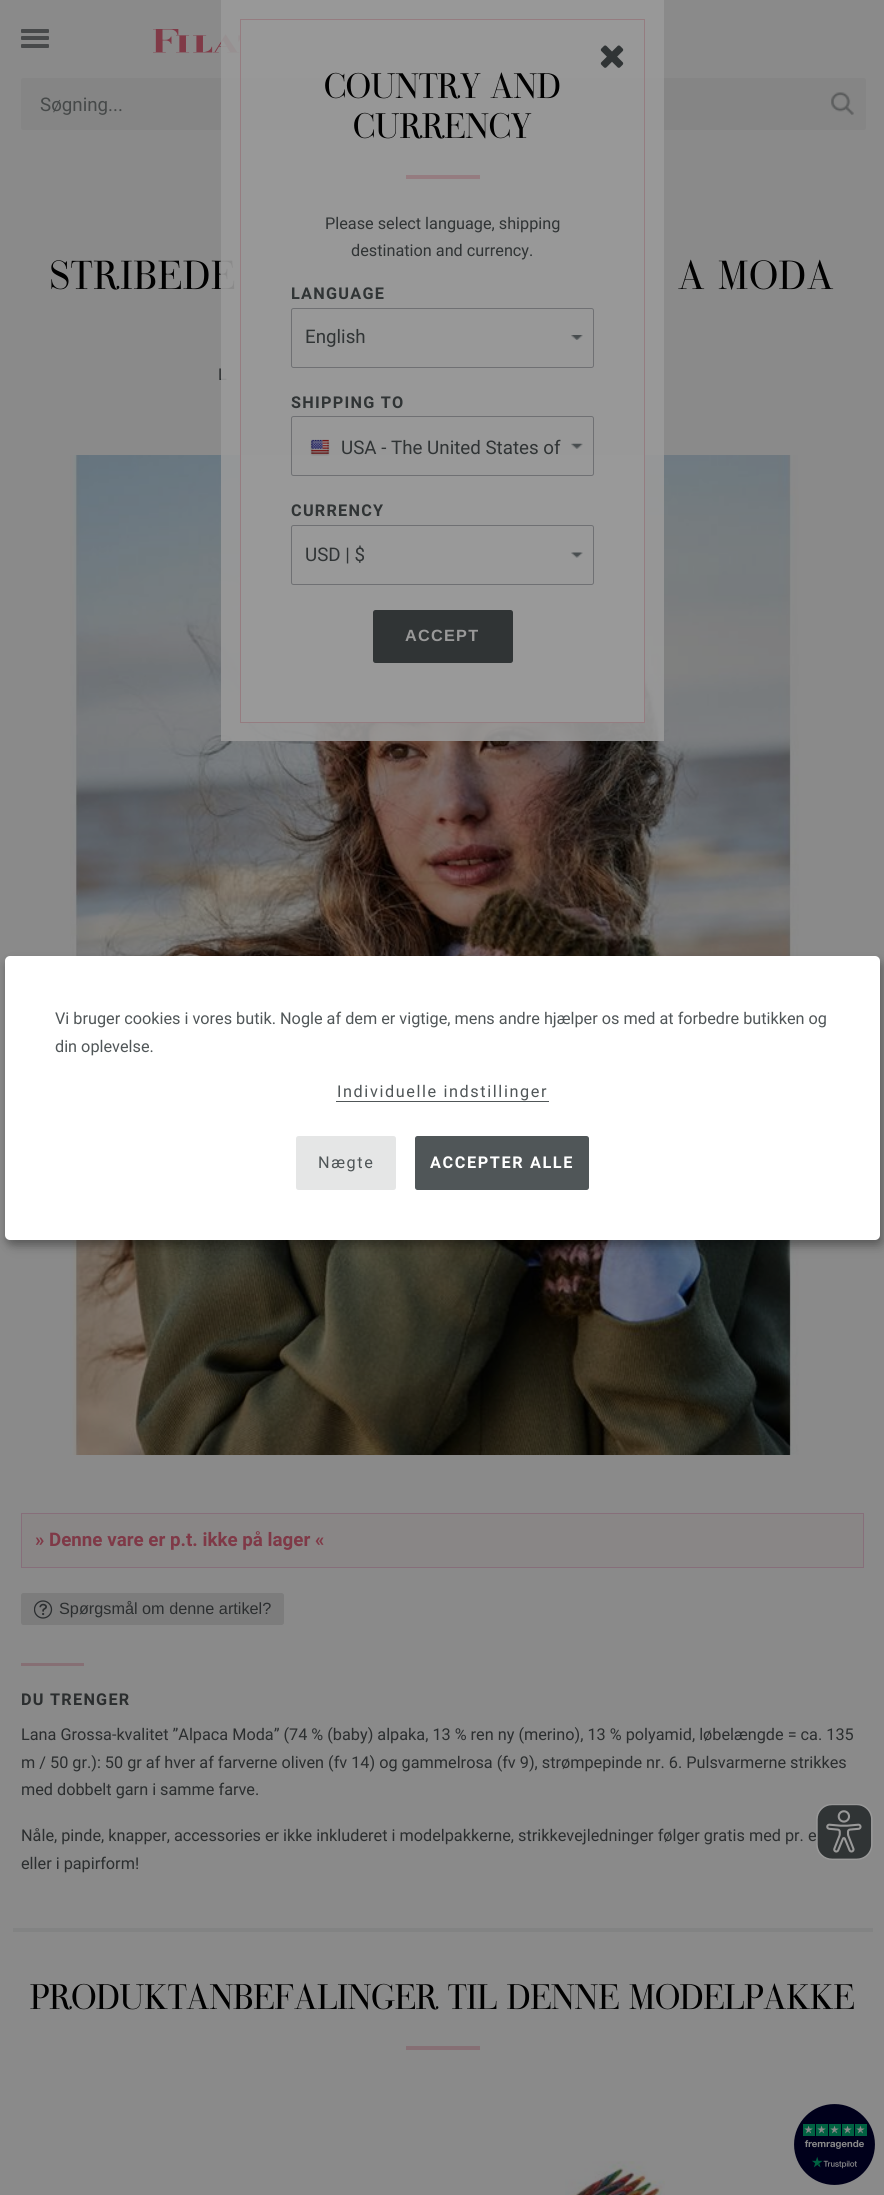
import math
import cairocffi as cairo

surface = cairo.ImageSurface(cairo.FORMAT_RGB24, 884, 2195)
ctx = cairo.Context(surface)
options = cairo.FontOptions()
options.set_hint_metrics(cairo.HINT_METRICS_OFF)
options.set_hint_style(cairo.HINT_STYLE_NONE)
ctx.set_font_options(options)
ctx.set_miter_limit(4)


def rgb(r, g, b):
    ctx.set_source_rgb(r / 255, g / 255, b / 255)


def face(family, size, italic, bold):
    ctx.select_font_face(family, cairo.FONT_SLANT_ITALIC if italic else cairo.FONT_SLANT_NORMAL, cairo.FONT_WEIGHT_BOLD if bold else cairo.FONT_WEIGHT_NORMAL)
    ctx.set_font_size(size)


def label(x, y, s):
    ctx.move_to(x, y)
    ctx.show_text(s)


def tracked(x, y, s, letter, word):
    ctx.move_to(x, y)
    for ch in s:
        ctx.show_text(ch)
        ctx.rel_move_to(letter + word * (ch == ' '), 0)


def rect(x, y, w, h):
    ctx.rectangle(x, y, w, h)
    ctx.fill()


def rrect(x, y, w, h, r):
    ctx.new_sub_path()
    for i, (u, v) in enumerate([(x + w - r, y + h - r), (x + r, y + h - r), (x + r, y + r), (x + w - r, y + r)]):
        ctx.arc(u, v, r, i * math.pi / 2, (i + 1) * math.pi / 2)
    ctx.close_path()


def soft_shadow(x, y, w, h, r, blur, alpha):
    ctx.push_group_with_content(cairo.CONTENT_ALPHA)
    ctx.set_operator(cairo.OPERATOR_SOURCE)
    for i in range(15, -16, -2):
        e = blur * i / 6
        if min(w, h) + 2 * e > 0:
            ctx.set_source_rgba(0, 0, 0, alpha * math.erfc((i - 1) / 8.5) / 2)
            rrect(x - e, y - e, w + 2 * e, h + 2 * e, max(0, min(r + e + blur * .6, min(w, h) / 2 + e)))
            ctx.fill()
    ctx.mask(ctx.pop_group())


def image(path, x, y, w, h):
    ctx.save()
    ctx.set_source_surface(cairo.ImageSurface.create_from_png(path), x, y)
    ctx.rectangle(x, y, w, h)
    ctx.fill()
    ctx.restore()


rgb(138, 138, 138)
ctx.paint()
rgb(71, 73, 74)
rrect(21, 29, 28, 4, 1)
ctx.fill()
rrect(21, 36, 28, 4, 1)
ctx.fill()
rrect(21, 44, 28, 4, 1)
ctx.fill()
image('image0.png', 153, 29, 87, 24)
rgb(133, 133, 133)
ctx.new_path()
ctx.move_to(23.5, 78)
ctx.line_to(780, 78)
ctx.line_to(780, 130)
ctx.line_to(23.5, 130)
ctx.curve_to(22, 130, 21, 129, 21, 127.5)
ctx.line_to(21, 80.5)
ctx.curve_to(21, 79, 22, 78, 23.5, 78)
ctx.close_path()
ctx.fill()
face('Roboto', 18.75, 0, 0)
rgb(70, 73, 73)
label(40, 111, 'Søgning...')
rgb(133, 133, 133)
ctx.new_path()
ctx.move_to(780, 78)
ctx.line_to(863.5, 78)
ctx.curve_to(865, 78, 866, 79, 866, 80.5)
ctx.line_to(866, 127.5)
ctx.curve_to(866, 129, 865, 130, 863.5, 130)
ctx.line_to(780, 130)
ctx.close_path()
ctx.fill()
image('image1.png', 831, 92, 23, 23)
face('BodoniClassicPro', 40, 0, 0)
rgb(0, 0, 0)
tracked(50, 289, 'STRIBEDE', 1.25, 0)
face('Roboto', 16.25, 0, 0)
rgb(43, 46, 47)
label(218, 380, 'L')
image('image7.png', 70, 455, 729, 1000)
ctx.set_source_rgba(0.6, 0.6, 0.6, 0.9)
rect(221, 0, 443, 741)
rgb(153, 153, 153)
rect(241, 455, 403, 267)
ctx.rectangle(240.5, 19.5, 404, 703)
rgb(149, 124, 128)
ctx.set_line_width(1)
ctx.stroke()
image('image2.png', 600, 45, 24, 23)
face('BodoniClassicPro', 35, 0, 0)
rgb(0, 0, 0)
label(324, 98, 'COUNTRY AND')
label(353, 138, 'CURRENCY')
rgb(149, 124, 128)
rect(406, 175, 74, 4)
face('Roboto', 16.25, 0, 0)
rgb(48, 52, 53)
label(325, 229, 'Please select language, shipping')
label(351, 256, 'destination and currency.')
face('Roboto', 16.25, 0, 1)
tracked(291, 299, 'LANGUAGE', 1.25, 0)
image('image3.png', 571, 335, 12, 5)
rrect(291.5, 308.5, 302, 59, 2)
rgb(111, 112, 115)
ctx.stroke()
face('Roboto', 18.75, 0, 0)
rgb(48, 52, 53)
label(305, 343, 'English')
face('Roboto', 16.25, 0, 1)
tracked(291, 408, 'SHIPPING TO', 1.25, 0)
image('image4.png', 571, 443, 12, 6)
rrect(291.5, 416.5, 302, 59, 2)
rgb(111, 112, 115)
ctx.stroke()
image('image5.png', 310, 439, 20, 17)
face('Roboto', 18.75, 0, 0)
rgb(48, 52, 53)
label(341, 454, 'USA - The United States of')
face('Roboto', 16.25, 0, 1)
tracked(291, 516, 'CURRENCY', 1.25, 0)
image('image6.png', 571, 552, 12, 6)
rrect(291.5, 525.5, 302, 59, 2)
rgb(111, 112, 115)
ctx.stroke()
face('Roboto', 18.75, 0, 0)
rgb(48, 52, 53)
label(305, 561, 'USD | $')
rrect(373, 610, 140, 53, 2.5)
ctx.fill()
face('Liberation Sans', 16.25, 0, 1)
rgb(153, 153, 153)
tracked(405, 641, 'ACCEPT', 1.25, 0)
face('BodoniClassicPro', 40, 0, 0)
rgb(0, 0, 0)
tracked(678, 289, 'A MODA', 1.25, 0)
rgb(137, 134, 134)
ctx.rectangle(21.5, 1513.5, 842, 54)
ctx.fill_preserve()
rgb(135, 110, 122)
ctx.stroke()
face('Roboto', 18.75, 0, 1)
rgb(127, 57, 71)
label(35, 1546, '» Denne vare er p.t. ikke på lager «')
rgb(124, 124, 124)
rrect(21, 1593, 263, 32, 2.5)
ctx.fill()
image('image8.png', 34, 1600, 19, 19)
face('Liberation Sans', 16.25, 0, 0)
rgb(43, 46, 47)
label(59, 1614, 'Spørgsmål om denne artikel?')
rgb(134, 111, 116)
rect(21, 1663, 63, 3)
face('Roboto', 16.25, 0, 1)
rgb(43, 46, 47)
tracked(21, 1705, 'DU TRENGER', 1.25, 0)
face('Roboto', 16.25, 0, 0)
label(21, 1740, 'Lana Grossa-kvalitet ”Alpaca Moda” (74 % (baby) alpaka, 13 % ren ny (merino), 13 % polyamid, løbelængde = ca. 135')
label(21, 1768, 'm / 50 gr.): 50 gr af hver af farverne oliven (fv 14) og gammelrosa (fv 9), strømpepinde nr. 6. Pulsvarmerne strikkes')
label(21, 1795, 'med dobbelt garn i samme farve.')
label(21, 1841, 'Nåle, pinde, knapper, accessories er ikke inkluderet i modelpakkerne, strikkevejledninger følger gratis med pr. e')
label(21, 1869, 'eller i papirform!')
rgb(130, 131, 131)
rect(13, 1928, 860, 4)
face('BodoniClassicPro', 35, 0, 0)
rgb(0, 0, 0)
label(30, 2009, 'PRODUKTANBEFALINGER TIL DENNE MODELPAKKE')
rgb(134, 111, 116)
rect(406, 2046, 74, 4)
image('image9.png', 565, 2161, 100, 34)
rgb(0, 0, 0)
soft_shadow(11, 963, 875, 283, 5, 6, 0.19)
soft_shadow(5, 961, 875, 284, 5, 4, 0.2)
rgb(255, 255, 255)
rrect(5, 956, 875, 284, 5)
ctx.fill()
face('Roboto', 16.25, 0, 0)
rgb(80, 86, 88)
label(55, 1024, 'Vi bruger cookies i vores butik. Nogle af dem er vigtige, mens andre hjælper os med at forbedre butikken og')
label(55, 1052, 'din oplevelse.')
tracked(337, 1097, 'Individuelle indstillinger', 1.6, 0)
rect(336, 1101, 213, 1)
rgb(229, 230, 230)
rrect(296, 1136, 100, 54, 2.5)
ctx.fill()
rgb(80, 86, 88)
tracked(318, 1168, 'Nægte', 1.6, 0)
rrect(415, 1136, 174, 54, 2.5)
ctx.fill()
face('Roboto', 16.25, 0, 1)
rgb(255, 255, 255)
tracked(430, 1168, 'ACCEPTER ALLE', 1.6, 0)
image('image10.png', 816, 1804, 57, 56)
image('image11.png', 794, 2104, 81, 81)
surface.write_to_png('render.png')
